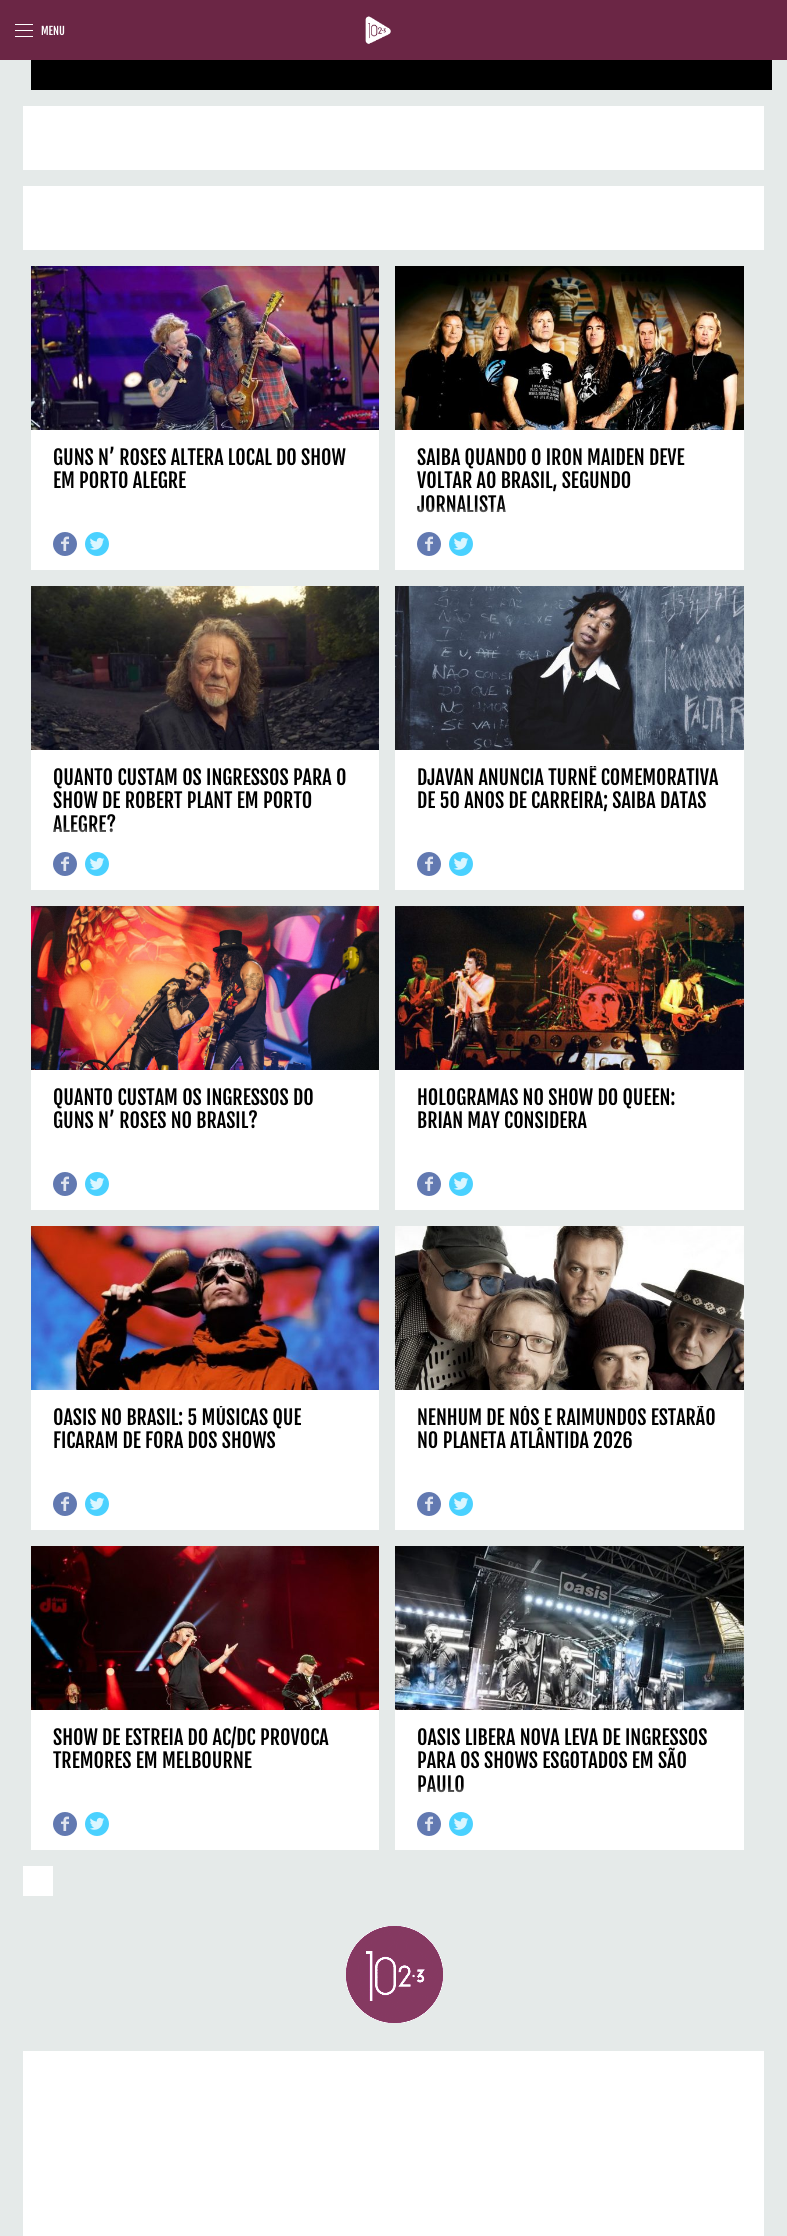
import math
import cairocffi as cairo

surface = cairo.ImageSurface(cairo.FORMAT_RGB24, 787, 2236)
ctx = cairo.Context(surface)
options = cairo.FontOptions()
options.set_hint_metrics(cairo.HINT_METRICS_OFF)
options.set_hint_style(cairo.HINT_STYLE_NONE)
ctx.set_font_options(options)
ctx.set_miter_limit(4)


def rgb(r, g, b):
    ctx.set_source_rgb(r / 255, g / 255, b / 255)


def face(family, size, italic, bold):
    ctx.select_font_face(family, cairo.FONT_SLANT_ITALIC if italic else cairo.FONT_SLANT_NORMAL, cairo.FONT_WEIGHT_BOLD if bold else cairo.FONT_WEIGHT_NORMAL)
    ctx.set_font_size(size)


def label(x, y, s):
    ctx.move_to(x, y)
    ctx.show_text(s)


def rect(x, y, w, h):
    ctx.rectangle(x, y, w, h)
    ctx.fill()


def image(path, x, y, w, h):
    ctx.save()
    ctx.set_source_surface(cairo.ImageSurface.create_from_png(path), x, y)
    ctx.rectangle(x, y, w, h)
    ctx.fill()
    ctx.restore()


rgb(229, 234, 233)
ctx.paint()
rgb(107, 38, 69)
rect(0, 0, 787, 60)
rgb(255, 255, 255)
rect(15, 24, 18, 1)
rect(15, 30, 18, 1)
rect(15, 36, 18, 1)
face('Fjalla One', 11, 0, 0)
label(41, 35, 'MENU')
image('image0.png', 365, 16, 26, 28)
rgb(0, 0, 0)
rect(31, 60, 741, 30)
rgb(255, 255, 255)
rect(23, 106, 741, 64)
rect(23, 186, 741, 64)
rect(31, 430, 348, 140)
image('image1.png', 31, 266, 348, 164)
face('Fjalla One', 20, 0, 0)
rgb(0, 0, 0)
label(53, 465, 'GUNS N’ ROSES ALTERA LOCAL DO SHOW')
label(53, 488, 'EM PORTO ALEGRE')
rgb(98, 121, 177)
ctx.new_path()
ctx.arc(65, 544, 12, 0, 2 * math.pi)
ctx.fill()
image('image2.png', 61, 536, 8, 15)
rgb(74, 209, 255)
ctx.arc(97, 544, 12, 0, 2 * math.pi)
ctx.fill()
image('image3.png', 89, 537, 16, 13)
rgb(255, 255, 255)
rect(395, 430, 349, 140)
image('image4.png', 395, 266, 349, 164)
rgb(0, 0, 0)
label(417, 465, 'SAIBA QUANDO O IRON MAIDEN DEVE')
label(417, 488, 'VOLTAR AO BRASIL, SEGUNDO')
label(417, 512, 'JORNALISTA')
gradient = cairo.LinearGradient(570, 506, 570, 522)
gradient.add_color_stop_rgba(0, 1, 1, 1, 0)
gradient.add_color_stop_rgba(1, 1, 1, 1, 1)
ctx.set_source(gradient)
rect(417, 506, 89, 7)
rgb(98, 121, 177)
ctx.new_path()
ctx.arc(429, 544, 12, 0, 2 * math.pi)
ctx.fill()
image('image2.png', 425, 536, 8, 15)
rgb(74, 209, 255)
ctx.arc(461, 544, 12, 0, 2 * math.pi)
ctx.fill()
image('image3.png', 453, 537, 16, 13)
rgb(255, 255, 255)
rect(31, 750, 348, 140)
image('image5.png', 31, 586, 348, 164)
rgb(0, 0, 0)
label(53, 785, 'QUANTO CUSTAM OS INGRESSOS PARA O')
label(53, 808, 'SHOW DE ROBERT PLANT EM PORTO')
label(53, 832, 'ALEGRE?')
gradient = cairo.LinearGradient(205, 826, 205, 842)
gradient.add_color_stop_rgba(0, 1, 1, 1, 0)
gradient.add_color_stop_rgba(1, 1, 1, 1, 1)
ctx.set_source(gradient)
rect(53, 826, 60, 7)
rgb(98, 121, 177)
ctx.new_path()
ctx.arc(65, 864, 12, 0, 2 * math.pi)
ctx.fill()
image('image2.png', 61, 856, 8, 15)
rgb(74, 209, 255)
ctx.arc(97, 864, 12, 0, 2 * math.pi)
ctx.fill()
image('image3.png', 89, 857, 16, 13)
rgb(255, 255, 255)
rect(395, 750, 349, 140)
image('image6.png', 395, 586, 349, 164)
ctx.save()
ctx.rectangle(417, 766, 305, 76)
ctx.clip()
rgb(0, 0, 0)
label(417, 785, 'DJAVAN ANUNCIA TURNÊ COMEMORATIVA')
ctx.restore()
rgb(0, 0, 0)
label(417, 808, 'DE 50 ANOS DE CARREIRA; SAIBA DATAS')
rgb(98, 121, 177)
ctx.new_path()
ctx.arc(429, 864, 12, 0, 2 * math.pi)
ctx.fill()
image('image2.png', 425, 856, 8, 15)
rgb(74, 209, 255)
ctx.arc(461, 864, 12, 0, 2 * math.pi)
ctx.fill()
image('image3.png', 453, 857, 16, 13)
rgb(255, 255, 255)
rect(31, 1070, 348, 140)
image('image7.png', 31, 906, 348, 164)
rgb(0, 0, 0)
label(53, 1105, 'QUANTO CUSTAM OS INGRESSOS DO')
label(53, 1128, 'GUNS N’ ROSES NO BRASIL?')
rgb(98, 121, 177)
ctx.new_path()
ctx.arc(65, 1184, 12, 0, 2 * math.pi)
ctx.fill()
image('image2.png', 61, 1176, 8, 15)
rgb(74, 209, 255)
ctx.arc(97, 1184, 12, 0, 2 * math.pi)
ctx.fill()
image('image3.png', 89, 1177, 16, 13)
rgb(255, 255, 255)
rect(395, 1070, 349, 140)
image('image8.png', 395, 906, 349, 164)
rgb(0, 0, 0)
label(417, 1105, 'HOLOGRAMAS NO SHOW DO QUEEN:')
label(417, 1128, 'BRIAN MAY CONSIDERA')
rgb(98, 121, 177)
ctx.new_path()
ctx.arc(429, 1184, 12, 0, 2 * math.pi)
ctx.fill()
image('image2.png', 425, 1176, 8, 15)
rgb(74, 209, 255)
ctx.arc(461, 1184, 12, 0, 2 * math.pi)
ctx.fill()
image('image3.png', 453, 1177, 16, 13)
rgb(255, 255, 255)
rect(31, 1390, 348, 140)
image('image9.png', 31, 1226, 348, 164)
ctx.save()
ctx.rectangle(53, 1406, 304, 76)
ctx.clip()
rgb(0, 0, 0)
label(53, 1425, 'OASIS NO BRASIL: 5 MÚSICAS QUE')
ctx.restore()
rgb(0, 0, 0)
label(53, 1448, 'FICARAM DE FORA DOS SHOWS')
rgb(98, 121, 177)
ctx.new_path()
ctx.arc(65, 1504, 12, 0, 2 * math.pi)
ctx.fill()
image('image2.png', 61, 1496, 8, 15)
rgb(74, 209, 255)
ctx.arc(97, 1504, 12, 0, 2 * math.pi)
ctx.fill()
image('image3.png', 89, 1497, 16, 13)
rgb(255, 255, 255)
rect(395, 1390, 349, 140)
image('image10.png', 395, 1226, 349, 164)
ctx.save()
ctx.rectangle(417, 1406, 305, 76)
ctx.clip()
rgb(0, 0, 0)
label(417, 1425, 'NENHUM DE NÓS E RAIMUNDOS ESTARÃO')
ctx.restore()
rgb(0, 0, 0)
label(417, 1448, 'NO PLANETA ATLÂNTIDA 2026')
rgb(98, 121, 177)
ctx.new_path()
ctx.arc(429, 1504, 12, 0, 2 * math.pi)
ctx.fill()
image('image2.png', 425, 1496, 8, 15)
rgb(74, 209, 255)
ctx.arc(461, 1504, 12, 0, 2 * math.pi)
ctx.fill()
image('image3.png', 453, 1497, 16, 13)
rgb(255, 255, 255)
rect(31, 1710, 348, 140)
image('image11.png', 31, 1546, 348, 164)
rgb(0, 0, 0)
label(53, 1745, 'SHOW DE ESTREIA DO AC/DC PROVOCA')
label(53, 1768, 'TREMORES EM MELBOURNE')
rgb(98, 121, 177)
ctx.new_path()
ctx.arc(65, 1824, 12, 0, 2 * math.pi)
ctx.fill()
image('image2.png', 61, 1816, 8, 15)
rgb(74, 209, 255)
ctx.arc(97, 1824, 12, 0, 2 * math.pi)
ctx.fill()
image('image3.png', 89, 1817, 16, 13)
rgb(255, 255, 255)
rect(395, 1710, 349, 140)
image('image12.png', 395, 1546, 349, 164)
rgb(0, 0, 0)
label(417, 1745, 'OASIS LIBERA NOVA LEVA DE INGRESSOS')
label(417, 1768, 'PARA OS SHOWS ESGOTADOS EM SÃO')
label(417, 1792, 'PAULO')
gradient = cairo.LinearGradient(570, 1786, 570, 1802)
gradient.add_color_stop_rgba(0, 1, 1, 1, 0)
gradient.add_color_stop_rgba(1, 1, 1, 1, 1)
ctx.set_source(gradient)
rect(418, 1786, 46, 7)
rgb(98, 121, 177)
ctx.new_path()
ctx.arc(429, 1824, 12, 0, 2 * math.pi)
ctx.fill()
image('image2.png', 425, 1816, 8, 15)
rgb(74, 209, 255)
ctx.arc(461, 1824, 12, 0, 2 * math.pi)
ctx.fill()
image('image3.png', 453, 1817, 16, 13)
rgb(255, 255, 255)
rect(23, 1866, 30, 30)
image('image13.png', 346, 1926, 97, 97)
rect(23, 2051, 741, 185)
surface.write_to_png('render.png')
